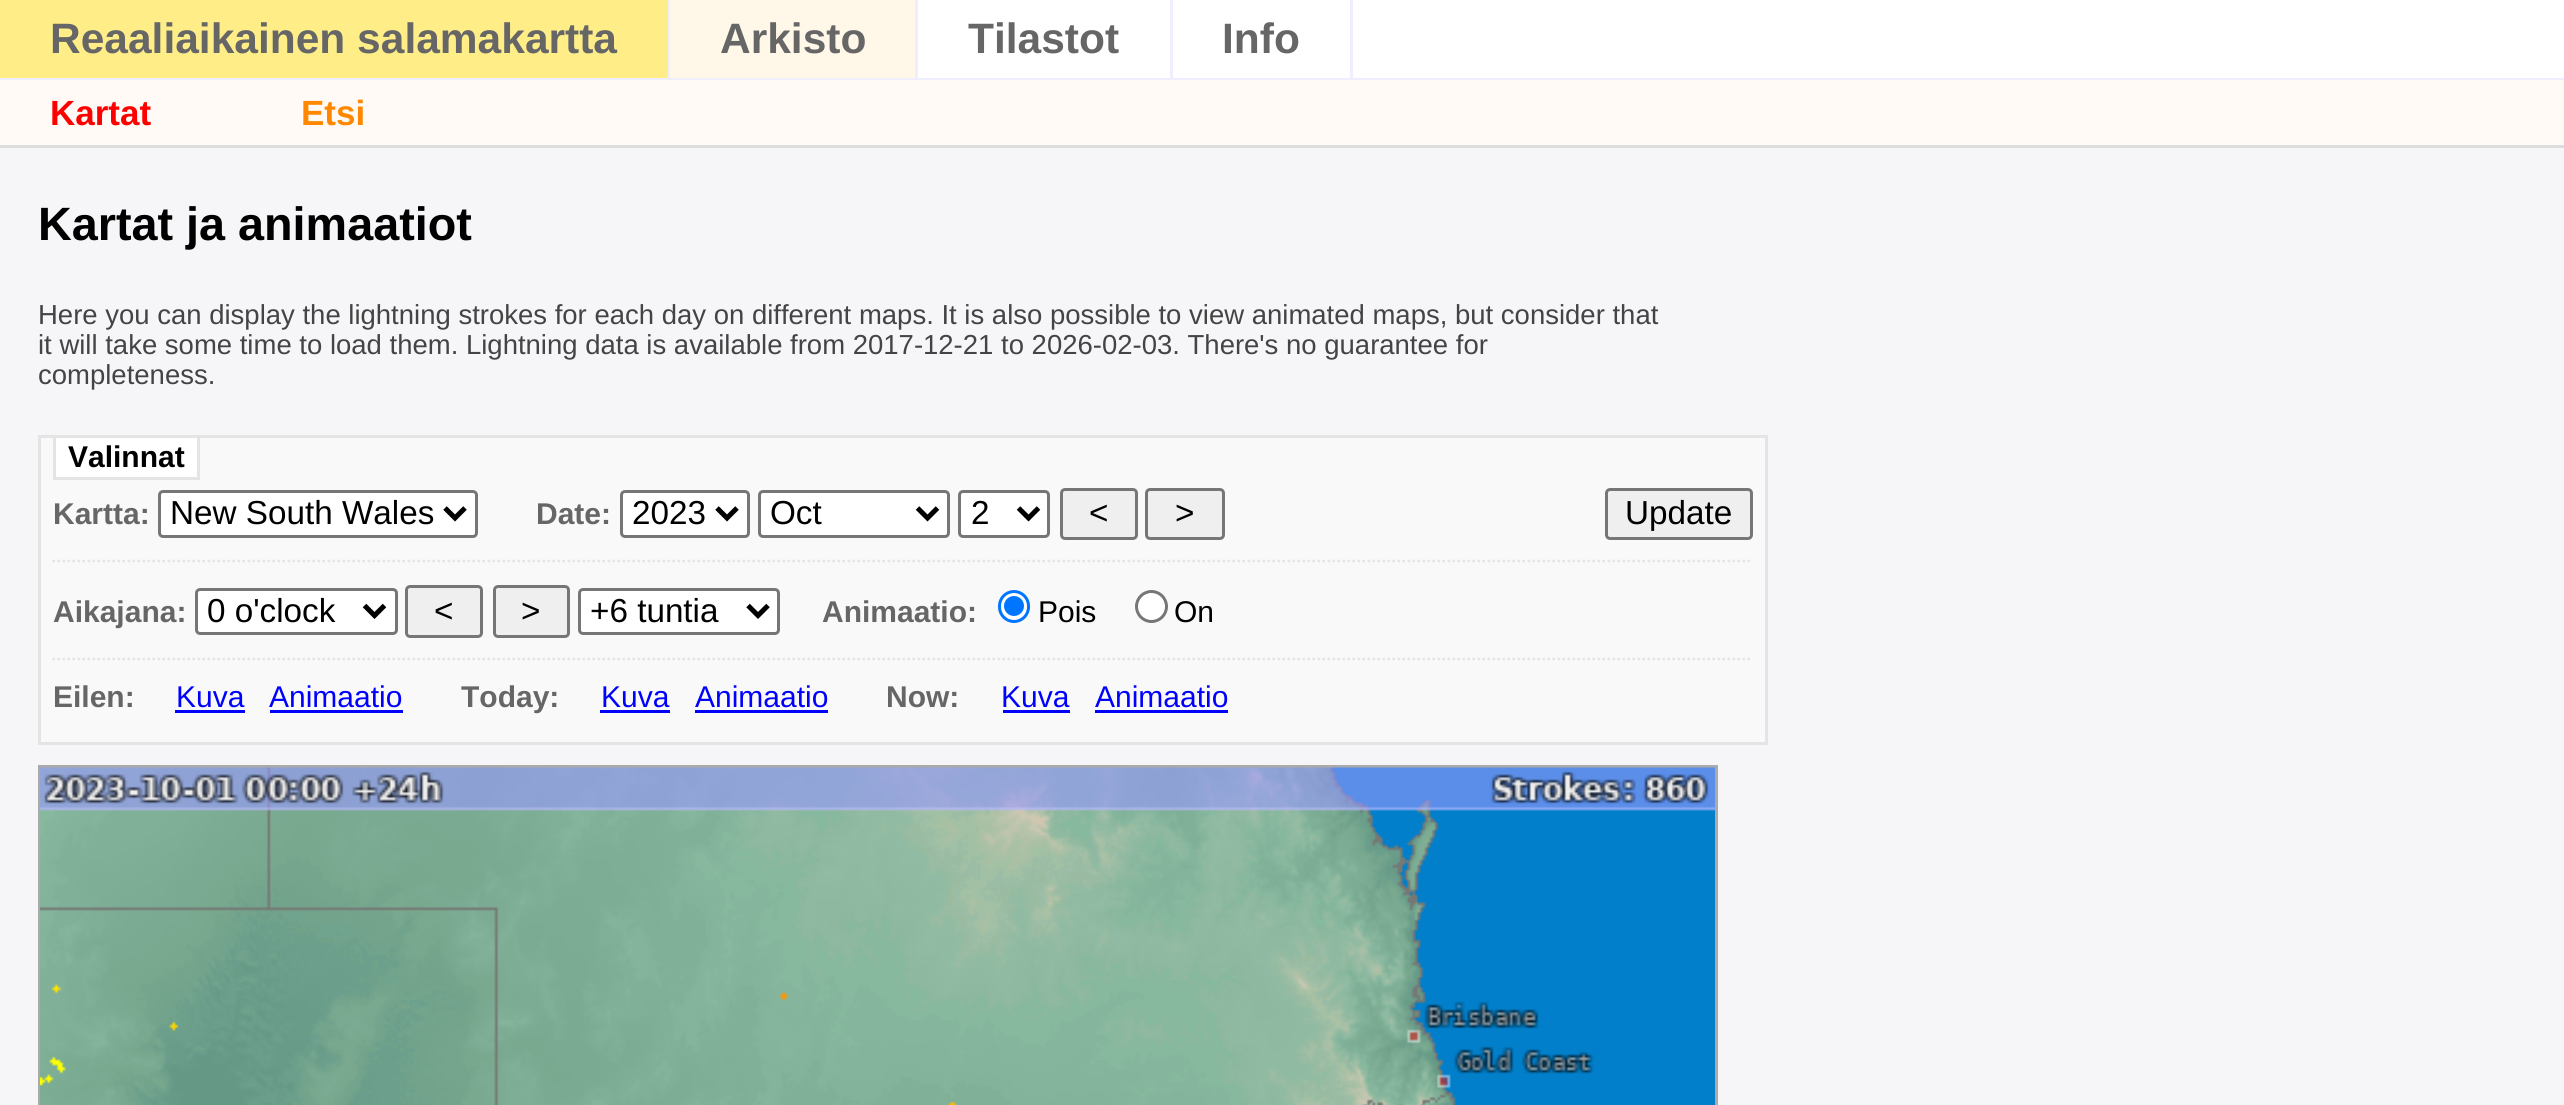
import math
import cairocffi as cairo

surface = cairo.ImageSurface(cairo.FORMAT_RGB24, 2564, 1105)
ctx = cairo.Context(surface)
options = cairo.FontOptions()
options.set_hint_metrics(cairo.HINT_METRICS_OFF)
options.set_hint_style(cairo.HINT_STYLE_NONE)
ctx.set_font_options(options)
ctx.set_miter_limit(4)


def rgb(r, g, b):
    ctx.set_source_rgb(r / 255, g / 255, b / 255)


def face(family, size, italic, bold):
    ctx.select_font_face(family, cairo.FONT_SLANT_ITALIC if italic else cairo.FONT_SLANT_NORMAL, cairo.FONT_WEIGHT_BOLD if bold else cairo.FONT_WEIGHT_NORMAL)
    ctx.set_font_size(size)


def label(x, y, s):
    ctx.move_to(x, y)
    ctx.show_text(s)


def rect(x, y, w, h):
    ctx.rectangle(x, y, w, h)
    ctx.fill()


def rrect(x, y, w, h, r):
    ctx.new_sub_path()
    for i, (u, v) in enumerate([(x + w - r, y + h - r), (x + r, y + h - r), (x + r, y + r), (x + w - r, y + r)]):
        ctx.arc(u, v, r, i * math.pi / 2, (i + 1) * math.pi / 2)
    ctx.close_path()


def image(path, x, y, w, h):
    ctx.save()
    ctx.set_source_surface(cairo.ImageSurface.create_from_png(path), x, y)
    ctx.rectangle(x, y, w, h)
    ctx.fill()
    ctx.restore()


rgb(246, 246, 249)
ctx.paint()
rgb(255, 255, 255)
rect(918, 0, 1646, 78)
rgb(238, 238, 255)
rect(0, 78, 2564, 2)
rect(668, 0, 2, 78)
rgb(255, 238, 136)
rect(0, 0, 668, 78)
face('Liberation Sans', 42.5, 0, 1)
rgb(102, 102, 102)
label(50, 53, 'Reaaliaikainen salamakartta')
rgb(238, 238, 255)
rect(915, 0, 3, 78)
rgb(255, 247, 231)
rect(670, 0, 245, 78)
rgb(102, 102, 102)
label(720, 53, 'Arkisto')
rgb(238, 238, 255)
rect(1170, 0, 3, 78)
rgb(102, 102, 102)
label(968, 53, 'Tilastot')
rgb(238, 238, 255)
rect(1350, 0, 3, 78)
rgb(102, 102, 102)
label(1222, 53, 'Info')
rgb(255, 250, 245)
rect(0, 80, 2564, 65)
rgb(221, 221, 221)
rect(0, 145, 2564, 3)
face('Liberation Sans', 35, 0, 1)
rgb(255, 0, 0)
label(50, 125, 'Kartat')
rgb(255, 136, 0)
label(301, 125, 'Etsi')
face('Liberation Sans', 46.75, 0, 1)
rgb(0, 0, 0)
label(38, 240, 'Kartat ja animaatiot')
face('Liberation Sans', 27.5, 0, 0)
rgb(68, 68, 68)
label(38, 324, 'Here you can display the lightning strokes for each day on different maps. It is also possible to view animated maps, but consider that')
label(38, 354, 'it will take some time to load them. Lightning data is available from 2017-12-21 to 2026-02-03. There\'s no guarantee for')
label(38, 384, 'completeness.')
rgb(249, 249, 249)
ctx.rectangle(39.5, 436.5, 1727, 307)
ctx.fill_preserve()
rgb(228, 228, 228)
ctx.set_line_width(3)
ctx.stroke()
rgb(255, 255, 255)
ctx.rectangle(54.5, 436.5, 144, 42)
ctx.fill_preserve()
rgb(228, 228, 228)
ctx.stroke()
face('Liberation Sans', 30, 0, 1)
rgb(0, 0, 0)
label(68, 467, 'Valinnat')
rgb(102, 102, 102)
label(53, 524, 'Kartta:')
rgb(255, 255, 255)
rrect(159.5, 491.5, 317, 45, 3.5)
ctx.fill_preserve()
rgb(118, 118, 118)
ctx.stroke()
ctx.new_path()
ctx.move_to(445, 508)
ctx.line_to(455, 518)
ctx.line_to(465, 508)
rgb(0, 0, 0)
ctx.set_line_width(5)
ctx.stroke()
face('Liberation Sans', 33.25, 0, 0)
label(170, 524, 'New South Wales')
face('Liberation Sans', 30, 0, 1)
rgb(102, 102, 102)
label(536, 524, 'Date:')
rgb(255, 255, 255)
rrect(621.5, 491.5, 127, 45, 3.5)
ctx.fill_preserve()
rgb(118, 118, 118)
ctx.set_line_width(3)
ctx.stroke()
ctx.new_path()
ctx.move_to(717, 508)
ctx.line_to(727, 518)
ctx.line_to(737, 508)
rgb(0, 0, 0)
ctx.set_line_width(5)
ctx.stroke()
face('Liberation Sans', 33.25, 0, 0)
label(632, 524, '2023')
rgb(255, 255, 255)
rrect(759.5, 491.5, 189, 45, 3.5)
ctx.fill_preserve()
rgb(118, 118, 118)
ctx.set_line_width(3)
ctx.stroke()
ctx.new_path()
ctx.move_to(917.5, 508)
ctx.line_to(927.5, 518)
ctx.line_to(937.5, 508)
rgb(0, 0, 0)
ctx.set_line_width(5)
ctx.stroke()
label(770, 524, 'Oct')
rgb(255, 255, 255)
rrect(959.5, 491.5, 89, 45, 3.5)
ctx.fill_preserve()
rgb(118, 118, 118)
ctx.set_line_width(3)
ctx.stroke()
ctx.new_path()
ctx.move_to(1018.5, 508)
ctx.line_to(1028.5, 518)
ctx.line_to(1038.5, 508)
rgb(0, 0, 0)
ctx.set_line_width(5)
ctx.stroke()
label(971, 524, '2')
rgb(239, 239, 239)
rrect(1061.5, 489.5, 75, 49, 3.5)
ctx.fill_preserve()
rgb(118, 118, 118)
ctx.set_line_width(3)
ctx.stroke()
rgb(0, 0, 0)
label(1089, 524, '<')
rgb(239, 239, 239)
rrect(1146.5, 489.5, 77, 49, 3.5)
ctx.fill_preserve()
rgb(118, 118, 118)
ctx.stroke()
rgb(0, 0, 0)
label(1175, 524, '>')
rgb(239, 239, 239)
rrect(1606.5, 489.5, 145, 49, 3.5)
ctx.fill_preserve()
rgb(118, 118, 118)
ctx.stroke()
rgb(0, 0, 0)
label(1625, 524, 'Update')
ctx.new_path()
ctx.move_to(52.5, 561)
ctx.line_to(1752.5, 561)
rgb(228, 228, 228)
ctx.set_line_width(2.5)
ctx.set_dash([2.5, 2.5])
ctx.stroke()
face('Liberation Sans', 30, 0, 1)
rgb(102, 102, 102)
label(53, 622, 'Aikajana:')
rgb(255, 255, 255)
rrect(196.5, 589.5, 200, 44, 3.5)
ctx.fill_preserve()
rgb(118, 118, 118)
ctx.set_line_width(3)
ctx.set_dash([])
ctx.stroke()
ctx.new_path()
ctx.move_to(364.5, 605.5)
ctx.line_to(374.5, 615.5)
ctx.line_to(384.5, 605.5)
rgb(0, 0, 0)
ctx.set_line_width(5)
ctx.stroke()
face('Liberation Sans', 33.25, 0, 0)
label(207, 622, '0 o\'clock')
rgb(239, 239, 239)
rrect(406.5, 586.5, 75, 50, 3.5)
ctx.fill_preserve()
rgb(118, 118, 118)
ctx.set_line_width(3)
ctx.stroke()
rgb(0, 0, 0)
label(434, 622, '<')
rgb(239, 239, 239)
rrect(494.5, 586.5, 74, 50, 3.5)
ctx.fill_preserve()
rgb(118, 118, 118)
ctx.stroke()
rgb(0, 0, 0)
label(521, 622, '>')
rgb(255, 255, 255)
rrect(579.5, 589.5, 199, 44, 3.5)
ctx.fill_preserve()
rgb(118, 118, 118)
ctx.stroke()
ctx.new_path()
ctx.move_to(748, 605.5)
ctx.line_to(758, 615.5)
ctx.line_to(768, 605.5)
rgb(0, 0, 0)
ctx.set_line_width(5)
ctx.stroke()
label(590, 622, '+6 tuntia')
face('Liberation Sans', 30, 0, 1)
rgb(102, 102, 102)
label(822, 622, 'Animaatio:')
rgb(255, 255, 255)
rrect(999.5, 591.5, 29, 30, 14.5)
ctx.fill_preserve()
rgb(0, 117, 255)
ctx.set_line_width(3)
ctx.stroke()
ctx.arc(1014, 606, 10, 0, 2 * math.pi)
ctx.fill()
face('Liberation Sans', 30, 0, 0)
rgb(0, 0, 0)
label(1038, 622, 'Pois')
rgb(255, 255, 255)
ctx.new_path()
ctx.arc(1151.5, 606.5, 15, 0, 2 * math.pi)
ctx.fill_preserve()
rgb(118, 118, 118)
ctx.stroke()
rgb(0, 0, 0)
label(1174, 622, 'On')
ctx.new_path()
ctx.move_to(52.5, 659)
ctx.line_to(1752.5, 659)
rgb(228, 228, 228)
ctx.set_line_width(2.5)
ctx.set_dash([2.5, 2.5])
ctx.stroke()
face('Liberation Sans', 30, 0, 1)
rgb(102, 102, 102)
label(53, 707, 'Eilen:')
face('Liberation Sans', 30, 0, 0)
rgb(0, 0, 255)
label(176, 707, 'Kuva')
rect(175, 710, 70, 3)
label(269, 707, 'Animaatio')
rect(270, 710, 133, 3)
face('Liberation Sans', 30, 0, 1)
rgb(102, 102, 102)
label(461, 707, 'Today:')
face('Liberation Sans', 30, 0, 0)
rgb(0, 0, 255)
label(601, 707, 'Kuva')
rect(600, 710, 70, 3)
label(695, 707, 'Animaatio')
rect(695, 710, 133, 3)
face('Liberation Sans', 30, 0, 1)
rgb(102, 102, 102)
label(886, 707, 'Now:')
face('Liberation Sans', 30, 0, 0)
rgb(0, 0, 255)
label(1001, 707, 'Kuva')
rect(1003, 710, 67, 3)
label(1095, 707, 'Animaatio')
rect(1095, 710, 133, 3)
ctx.rectangle(39.5, 766.5, 1677, 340)
rgb(170, 170, 170)
ctx.set_line_width(3)
ctx.set_dash([])
ctx.stroke()
image('image0.png', 40, 767, 1675, 338)
surface.write_to_png('render.png')
